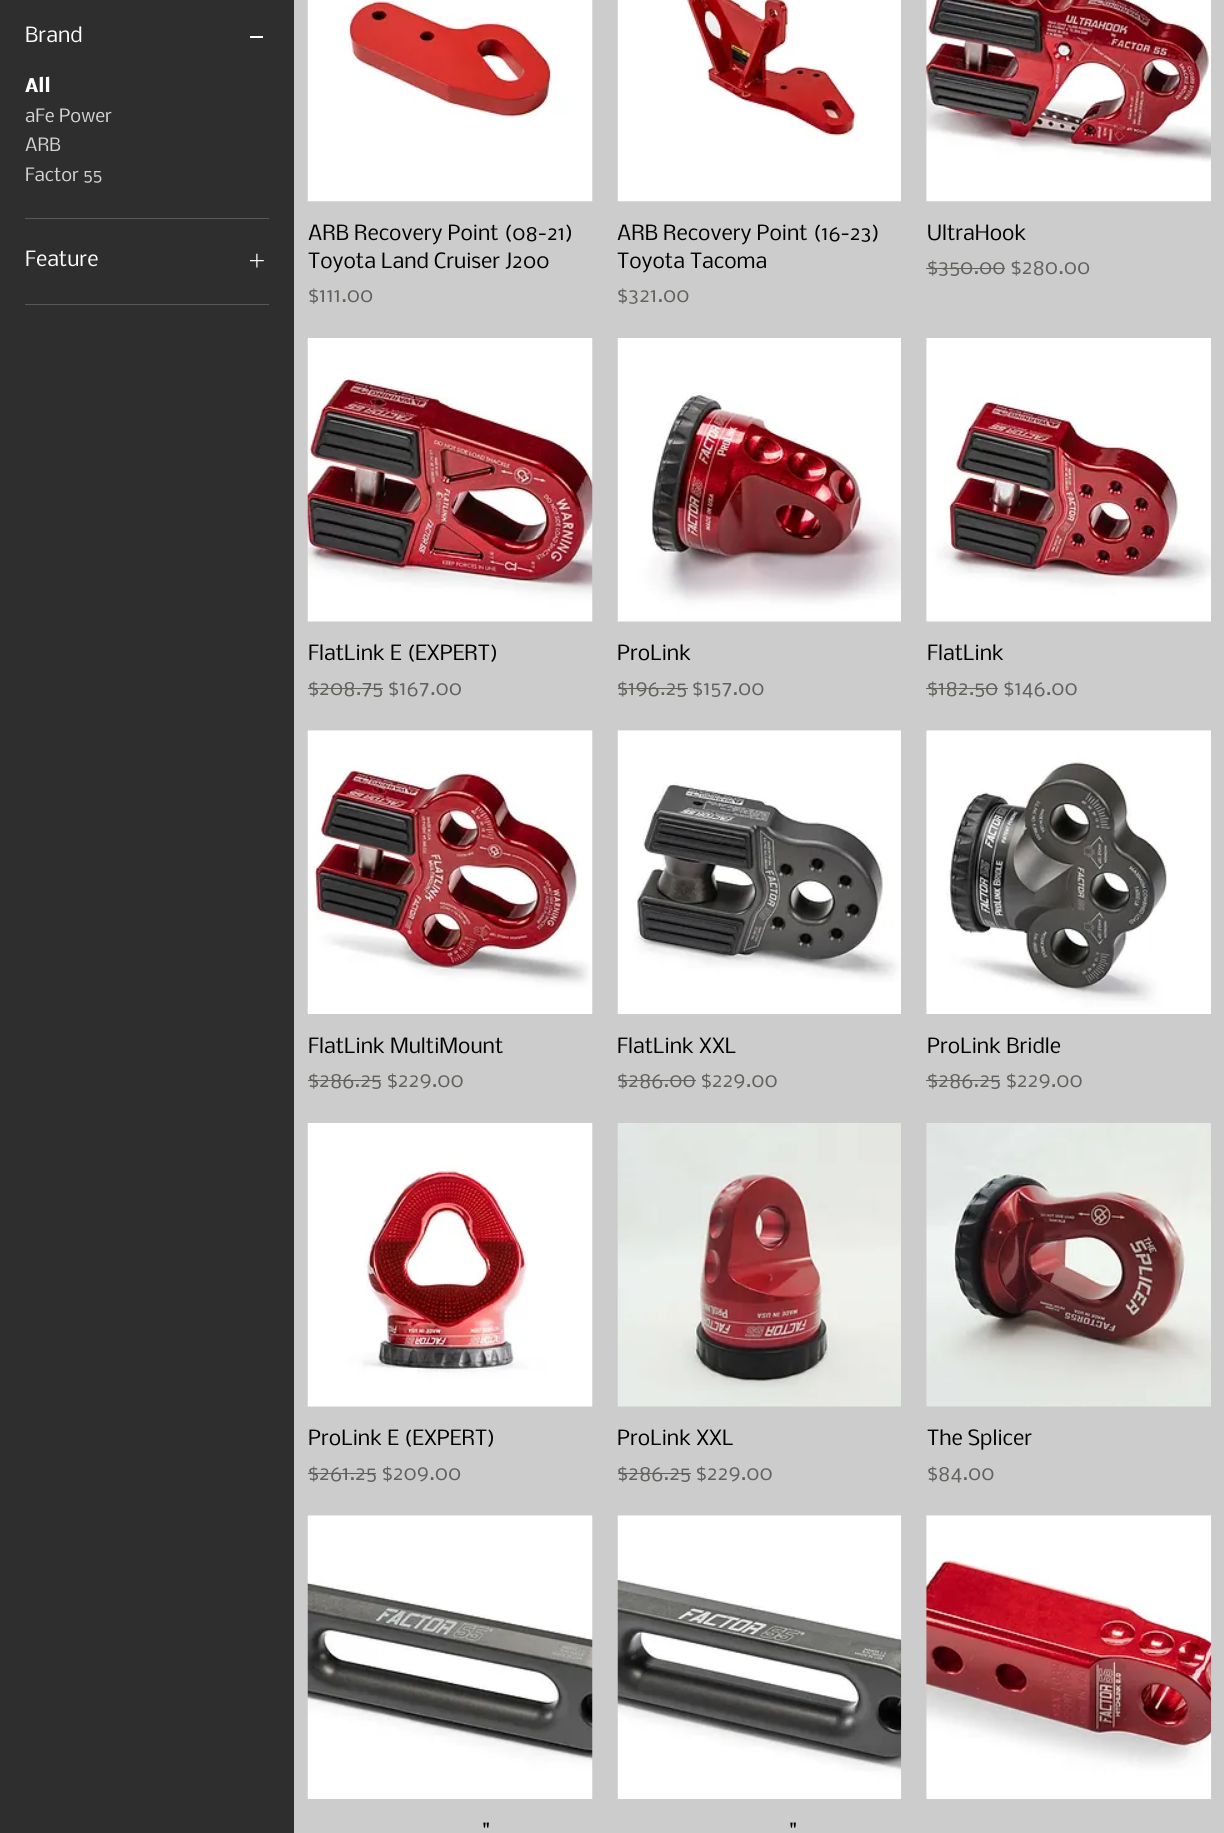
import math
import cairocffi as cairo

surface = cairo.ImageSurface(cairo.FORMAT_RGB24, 1224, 1833)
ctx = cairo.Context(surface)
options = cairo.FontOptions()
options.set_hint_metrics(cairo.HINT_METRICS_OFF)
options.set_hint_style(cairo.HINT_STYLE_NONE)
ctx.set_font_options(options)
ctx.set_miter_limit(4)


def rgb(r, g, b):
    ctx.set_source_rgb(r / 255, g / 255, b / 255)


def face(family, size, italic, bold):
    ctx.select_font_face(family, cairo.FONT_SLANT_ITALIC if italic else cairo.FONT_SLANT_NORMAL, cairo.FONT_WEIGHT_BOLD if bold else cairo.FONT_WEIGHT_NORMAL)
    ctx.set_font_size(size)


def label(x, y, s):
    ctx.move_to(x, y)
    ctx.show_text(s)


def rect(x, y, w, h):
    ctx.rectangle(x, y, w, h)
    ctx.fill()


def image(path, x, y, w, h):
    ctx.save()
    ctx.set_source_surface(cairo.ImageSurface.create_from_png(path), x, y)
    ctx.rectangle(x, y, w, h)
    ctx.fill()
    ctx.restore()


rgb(204, 204, 204)
ctx.paint()
rgb(47, 46, 46)
rect(0, 0, 294, 1833)
rgb(89, 88, 88)
rect(25, 218, 244, 1)
face('Nobile', 20, 0, 0)
rgb(255, 255, 255)
label(25, 42, 'Brand')
rect(250, 36, 13, 2)
face('Nobile', 17.5, 0, 1)
label(25, 92, 'All')
face('Nobile', 17.5, 0, 0)
rgb(213, 213, 213)
label(25, 122, 'aFe Power')
label(25, 151, 'ARB')
label(25, 181, 'Factor 55')
rgb(89, 88, 88)
rect(25, 304, 244, 1)
face('Nobile', 20, 0, 0)
rgb(255, 255, 255)
label(25, 266, 'Feature')
image('image0.png', 250, 253, 14, 15)
image('image1.png', 307, 0, 286, 202)
rgb(0, 0, 0)
label(308, 240, 'ARB Recovery Point (08-21)')
label(308, 268, 'Toyota Land Cruiser J200')
rgb(99, 97, 94)
label(308, 302, '$111.00')
image('image2.png', 617, 0, 284, 202)
rgb(0, 0, 0)
label(617, 240, 'ARB Recovery Point (16-23)')
label(617, 268, 'Toyota Tacoma')
rgb(99, 97, 94)
label(617, 302, '$321.00')
image('image3.png', 926, 0, 285, 202)
rgb(0, 0, 0)
label(927, 240, 'UltraHook')
rgb(99, 97, 94)
label(927, 274, '$350.00 $280.00')
rect(926, 268, 79, 1)
image('image4.png', 307, 338, 286, 284)
rgb(0, 0, 0)
label(308, 660, 'FlatLink E (EXPERT)')
rgb(99, 97, 94)
label(308, 695, '$208.75 $167.00')
rect(308, 688, 75, 1)
image('image5.png', 617, 338, 284, 284)
rgb(0, 0, 0)
label(617, 660, 'ProLink')
rgb(99, 97, 94)
label(617, 695, '$196.25 $157.00')
rect(618, 688, 70, 1)
image('image6.png', 926, 338, 285, 284)
rgb(0, 0, 0)
label(927, 660, 'FlatLink')
rgb(99, 97, 94)
label(927, 695, '$182.50 $146.00')
rect(926, 688, 72, 1)
image('image7.png', 307, 730, 286, 284)
rgb(0, 0, 0)
label(308, 1053, 'FlatLink MultiMount')
rgb(99, 97, 94)
label(308, 1087, '$286.25 $229.00')
rect(308, 1080, 73, 1)
image('image8.png', 617, 730, 284, 284)
rgb(0, 0, 0)
label(617, 1053, 'FlatLink XXL')
rgb(99, 97, 94)
label(617, 1087, '$286.00 $229.00')
rect(618, 1080, 78, 1)
image('image9.png', 926, 730, 285, 284)
rgb(0, 0, 0)
label(927, 1053, 'ProLink Bridle')
rgb(99, 97, 94)
label(927, 1087, '$286.25 $229.00')
rect(926, 1080, 74, 1)
image('image10.png', 307, 1123, 286, 284)
rgb(0, 0, 0)
label(308, 1445, 'ProLink E (EXPERT)')
rgb(99, 97, 94)
label(308, 1480, '$261.25 $209.00')
rect(308, 1473, 68, 1)
image('image11.png', 617, 1123, 284, 284)
rgb(0, 0, 0)
label(617, 1445, 'ProLink XXL')
rgb(99, 97, 94)
label(617, 1480, '$286.25 $229.00')
rect(618, 1473, 73, 1)
image('image12.png', 926, 1123, 285, 284)
rgb(0, 0, 0)
label(927, 1445, 'The Splicer')
rgb(99, 97, 94)
label(927, 1480, '$84.00')
image('image13.png', 926, 1515, 286, 284)
image('image14.png', 307, 1515, 286, 284)
rgb(0, 0, 0)
label(483, 1838, '"')
image('image15.png', 617, 1515, 285, 284)
label(790, 1838, '"')
surface.write_to_png('render.png')
